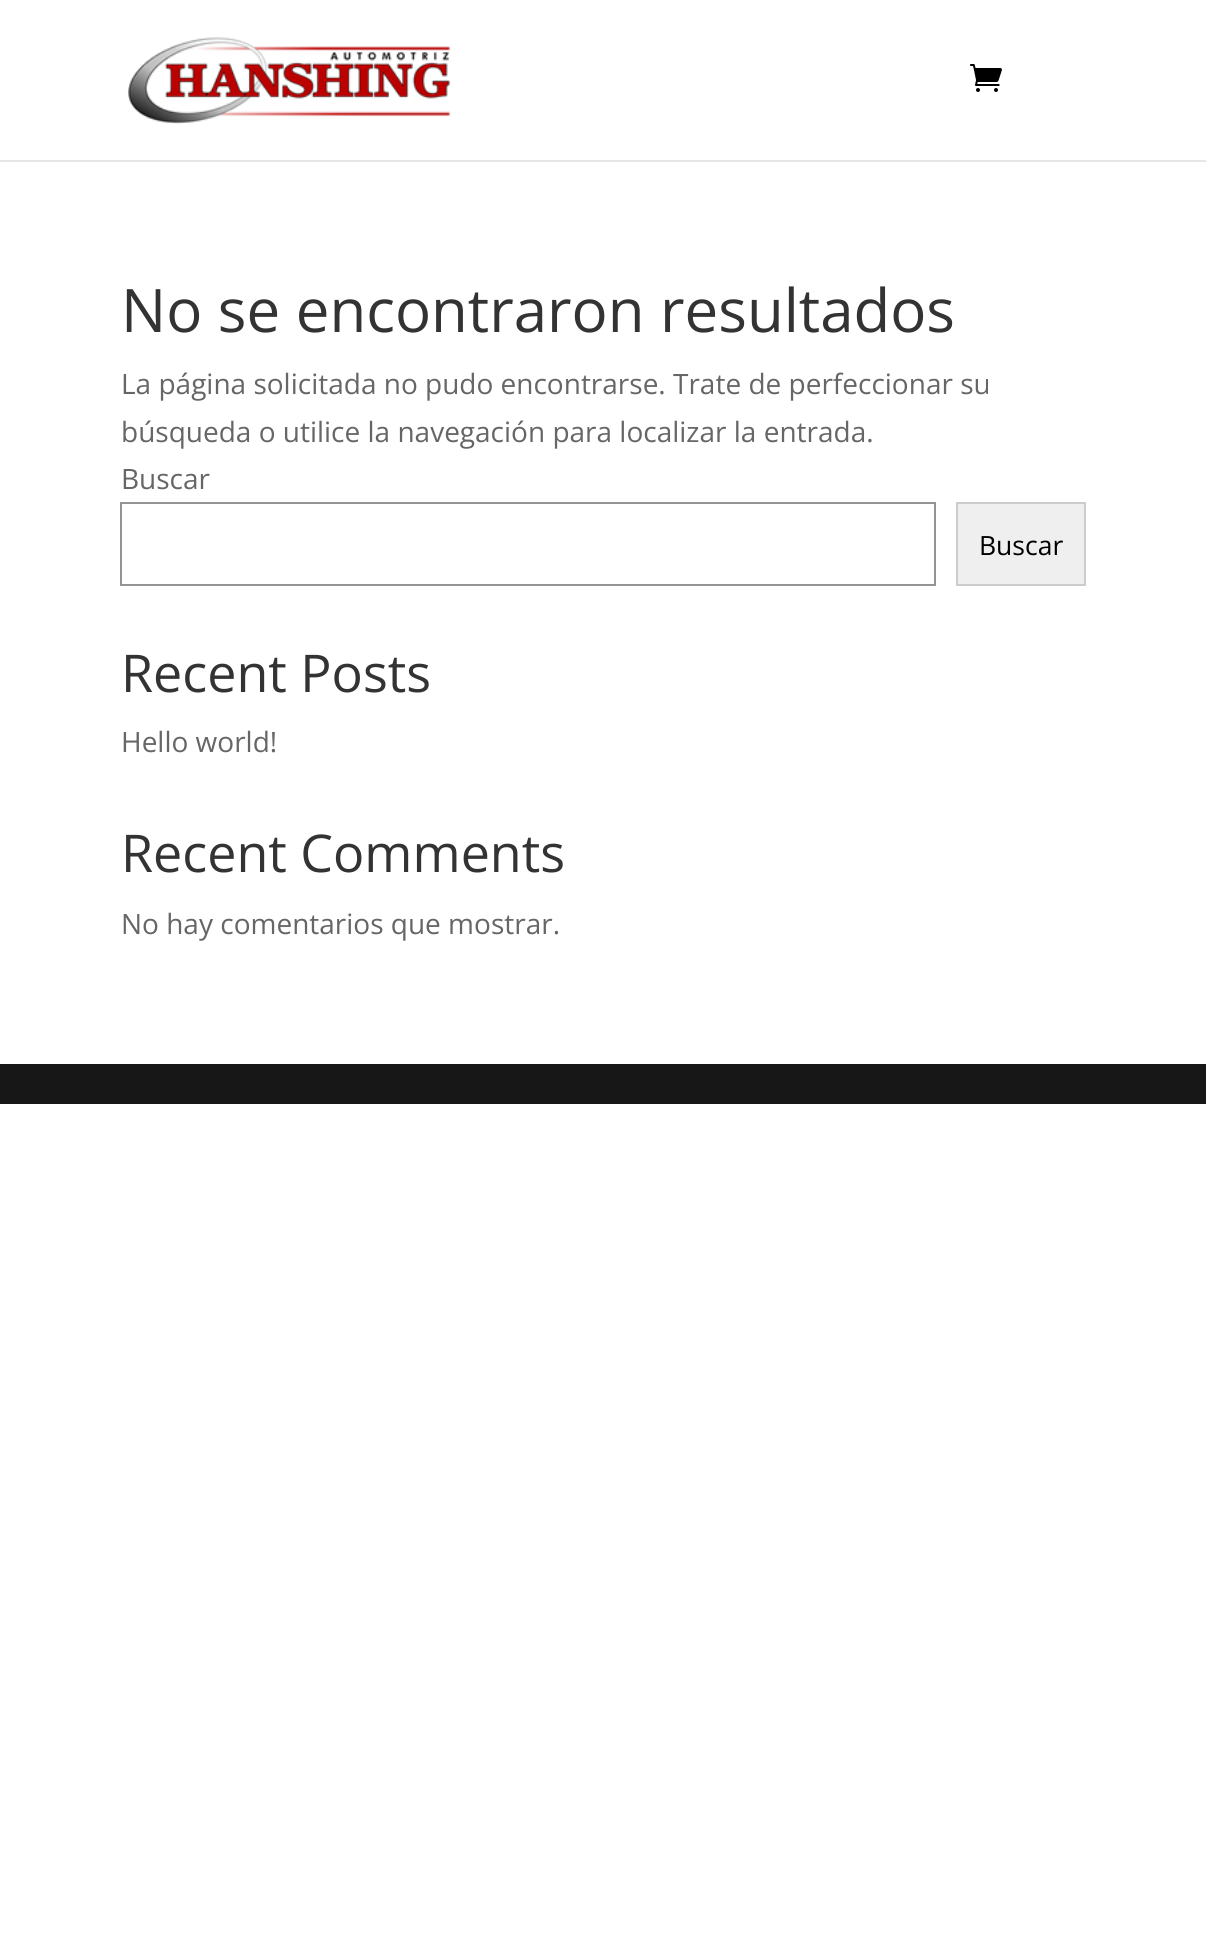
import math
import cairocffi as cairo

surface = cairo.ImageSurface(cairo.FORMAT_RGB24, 1206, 1955)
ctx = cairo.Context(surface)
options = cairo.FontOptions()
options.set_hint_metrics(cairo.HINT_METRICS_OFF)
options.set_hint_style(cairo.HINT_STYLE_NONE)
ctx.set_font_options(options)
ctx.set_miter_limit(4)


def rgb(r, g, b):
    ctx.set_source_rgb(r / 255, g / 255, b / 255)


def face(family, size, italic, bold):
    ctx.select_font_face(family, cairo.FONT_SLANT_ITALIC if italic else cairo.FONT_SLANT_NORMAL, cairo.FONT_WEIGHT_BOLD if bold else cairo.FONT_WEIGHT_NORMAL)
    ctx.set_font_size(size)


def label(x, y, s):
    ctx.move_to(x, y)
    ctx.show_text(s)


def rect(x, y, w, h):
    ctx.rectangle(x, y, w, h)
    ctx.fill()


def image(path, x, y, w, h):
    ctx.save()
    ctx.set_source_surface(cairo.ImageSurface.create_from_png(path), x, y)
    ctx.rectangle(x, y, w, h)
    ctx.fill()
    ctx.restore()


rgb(255, 255, 255)
ctx.paint()
rgb(230, 230, 230)
rect(0, 160, 1206, 2)
image('image0.png', 128, 37, 322, 87)
image('image1.png', 970, 64, 32, 28)
face('Open Sans', 60, 0, 0)
rgb(51, 51, 51)
label(121, 332, 'No se encontraron resultados')
face('Open Sans', 28, 0, 0)
rgb(102, 102, 102)
label(121, 394, 'La página solicitada no pudo encontrarse. Trate de perfeccionar su')
label(121, 442, 'búsqueda o utilice la navegación para localizar la entrada.')
label(121, 489, 'Buscar')
ctx.rectangle(121, 503, 814, 82)
rgb(148, 148, 148)
ctx.stroke()
rgb(239, 239, 239)
ctx.rectangle(957, 503, 128, 82)
ctx.fill_preserve()
rgb(204, 204, 204)
ctx.stroke()
face('Open Sans', 26.5, 0, 0)
rgb(0, 0, 0)
label(979, 555, 'Buscar')
face('Open Sans', 52, 0, 0)
rgb(51, 51, 51)
label(121, 692, 'Recent Posts')
face('Open Sans', 28, 0, 0)
rgb(102, 102, 102)
label(121, 752, 'Hello world!')
face('Open Sans', 52, 0, 0)
rgb(51, 51, 51)
label(121, 872, 'Recent Comments')
face('Open Sans', 28, 0, 0)
rgb(102, 102, 102)
label(121, 934, 'No hay comentarios que mostrar.')
rgb(23, 23, 23)
rect(0, 1064, 1206, 40)
surface.write_to_png('render.png')
